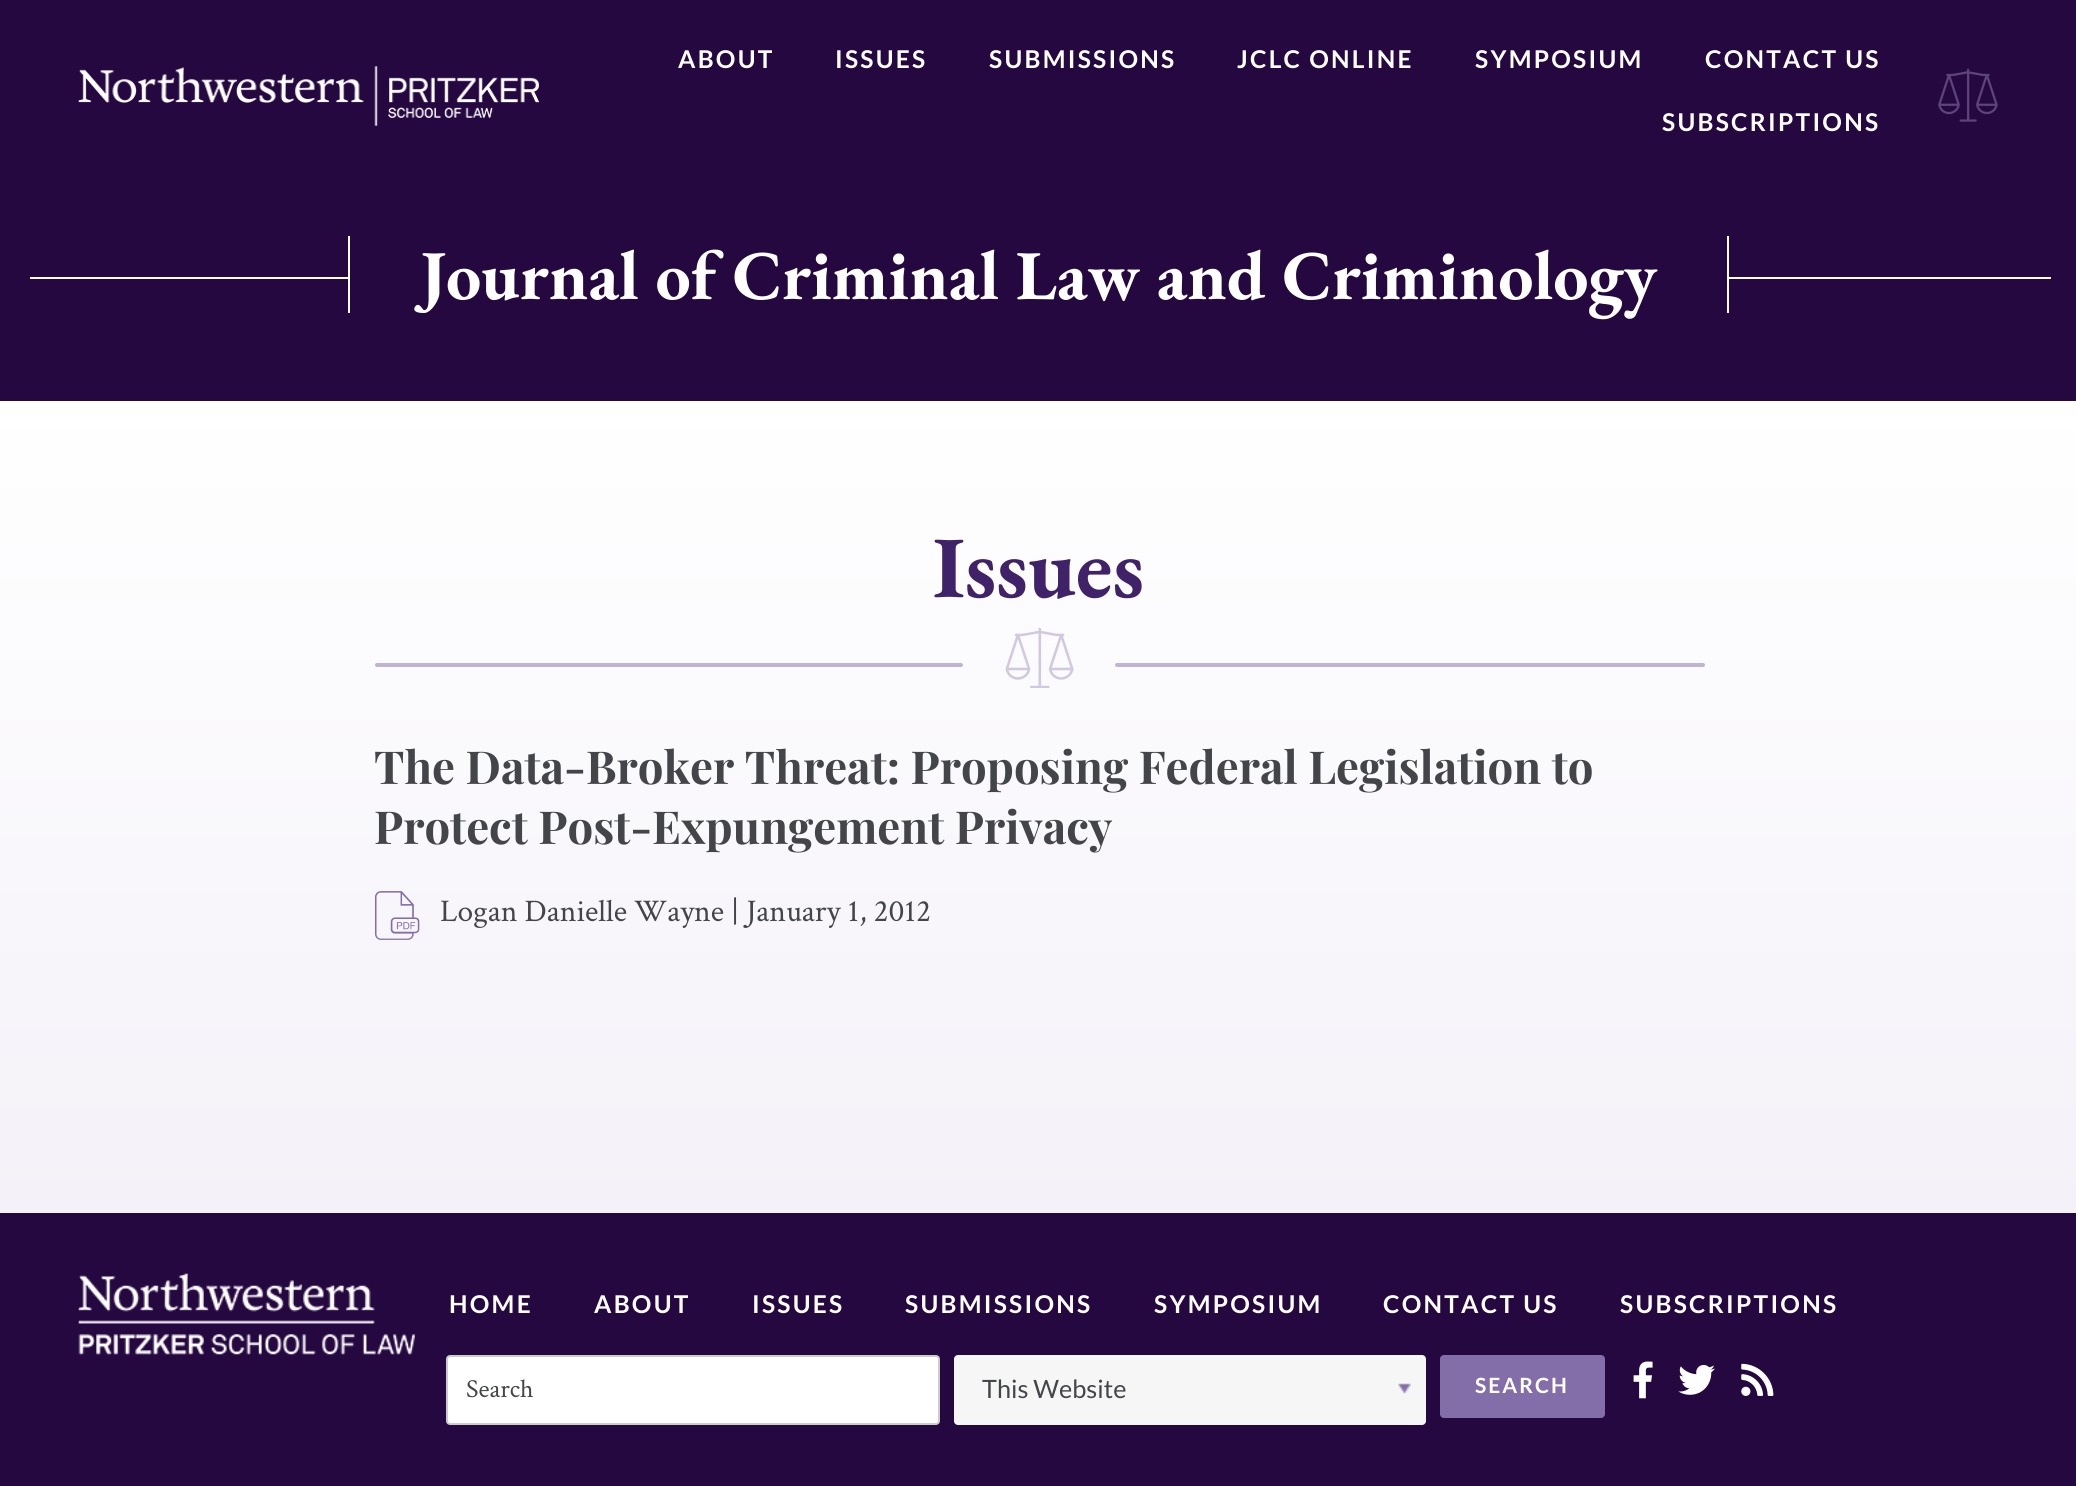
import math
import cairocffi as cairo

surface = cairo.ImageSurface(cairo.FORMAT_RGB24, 2076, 1486)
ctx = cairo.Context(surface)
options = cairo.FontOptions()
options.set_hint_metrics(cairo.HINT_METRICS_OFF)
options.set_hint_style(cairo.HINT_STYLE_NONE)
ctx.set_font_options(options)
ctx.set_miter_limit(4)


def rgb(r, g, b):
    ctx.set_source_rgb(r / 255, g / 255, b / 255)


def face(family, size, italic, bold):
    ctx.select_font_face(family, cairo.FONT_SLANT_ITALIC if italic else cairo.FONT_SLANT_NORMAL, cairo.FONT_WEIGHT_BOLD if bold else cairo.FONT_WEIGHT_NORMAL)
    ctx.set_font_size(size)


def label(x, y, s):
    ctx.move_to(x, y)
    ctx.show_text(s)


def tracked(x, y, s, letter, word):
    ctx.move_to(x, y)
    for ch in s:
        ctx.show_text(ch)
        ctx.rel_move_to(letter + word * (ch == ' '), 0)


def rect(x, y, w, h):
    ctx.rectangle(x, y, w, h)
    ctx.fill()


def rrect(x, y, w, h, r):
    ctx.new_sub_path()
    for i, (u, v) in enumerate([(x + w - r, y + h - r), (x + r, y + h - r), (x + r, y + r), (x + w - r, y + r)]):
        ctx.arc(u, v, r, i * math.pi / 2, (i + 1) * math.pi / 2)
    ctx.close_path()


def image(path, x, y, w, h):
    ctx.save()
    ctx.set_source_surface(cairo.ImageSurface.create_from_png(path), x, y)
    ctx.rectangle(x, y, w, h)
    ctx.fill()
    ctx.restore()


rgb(38, 8, 65)
ctx.paint()
image('image0.png', 78, 66, 461, 60)
face('Lato', 24.5, 0, 1)
rgb(255, 255, 255)
tracked(678, 68, 'ABOUT', 2.25, 0)
tracked(835, 68, 'ISSUES', 2.25, 0)
tracked(989, 68, 'SUBMISSIONS', 2.25, 0)
tracked(1237, 68, 'JCLC ONLINE', 2.25, 0)
tracked(1475, 68, 'SYMPOSIUM', 2.25, 0)
tracked(1705, 68, 'CONTACT US', 2.25, 0)
tracked(1662, 131, 'SUBSCRIPTIONS', 2.25, 0)
image('image1.png', 1938, 68, 60, 54)
rect(30, 277, 2021, 2)
rgb(38, 8, 65)
rect(350, 277, 1377, 2)
rgb(255, 255, 255)
rect(1727, 236, 2, 77)
rect(348, 236, 2, 77)
face('EB Garamond', 70, 0, 1)
label(420, 299, 'Journal of Criminal Law and Criminology')
gradient = cairo.LinearGradient(1039, 401, 1039, 1213)
gradient.add_color_stop_rgba(0, 1, 1, 1, 1)
gradient.add_color_stop_rgba(1, 0.957, 0.945, 0.973, 1)
ctx.set_source(gradient)
rect(0, 401, 2076, 812)
face('EB Garamond', 87.5, 0, 1)
rgb(64, 34, 104)
label(933, 597, 'Issues')
image('image2.png', 1005, 627, 69, 61)
rgb(191, 180, 212)
rrect(375, 663, 588, 4, 2)
ctx.fill()
rrect(1115, 663, 590, 4, 2)
ctx.fill()
face('Playfair Display', 45.5, 0, 1)
rgb(67, 69, 73)
label(374, 784, 'The Data-Broker Threat: Proposing Federal Legislation to')
label(374, 844, 'Protect Post-Expungement Privacy')
image('image3.png', 375, 891, 45, 49)
face('Crimson Text', 31.5, 0, 0)
label(440, 921, 'Logan Danielle Wayne | January 1, 2012')
image('image4.png', 78, 1273, 337, 82)
face('Lato', 24.5, 0, 1)
rgb(255, 255, 255)
tracked(449, 1313, 'HOME', 2.25, 0)
tracked(594, 1313, 'ABOUT', 2.25, 0)
tracked(752, 1313, 'ISSUES', 2.25, 0)
tracked(905, 1313, 'SUBMISSIONS', 2.25, 0)
tracked(1154, 1313, 'SYMPOSIUM', 2.25, 0)
tracked(1383, 1313, 'CONTACT US', 2.25, 0)
tracked(1620, 1313, 'SUBSCRIPTIONS', 2.25, 0)
rrect(447, 1356, 492, 68, 3)
ctx.fill_preserve()
rgb(204, 204, 204)
ctx.stroke()
face('Crimson Text', 26, 0, 0)
rgb(67, 69, 73)
label(466, 1397, 'Search')
rgb(246, 246, 246)
rrect(954, 1355, 472, 70, 4)
ctx.fill()
face('Lato', 25.25, 0, 0)
rgb(67, 69, 73)
label(982, 1398, 'This Website')
image('image5.png', 1398, 1383, 13, 11)
rgb(131, 110, 170)
rrect(1440, 1355, 165, 63, 4)
ctx.fill()
face('Lato', 21, 0, 1)
rgb(255, 255, 255)
tracked(1475, 1393, 'SEARCH', 2, 0)
image('image6.png', 1633, 1361, 20, 38)
image('image7.png', 1678, 1365, 37, 30)
image('image8.png', 1741, 1363, 33, 33)
surface.write_to_png('render.png')
